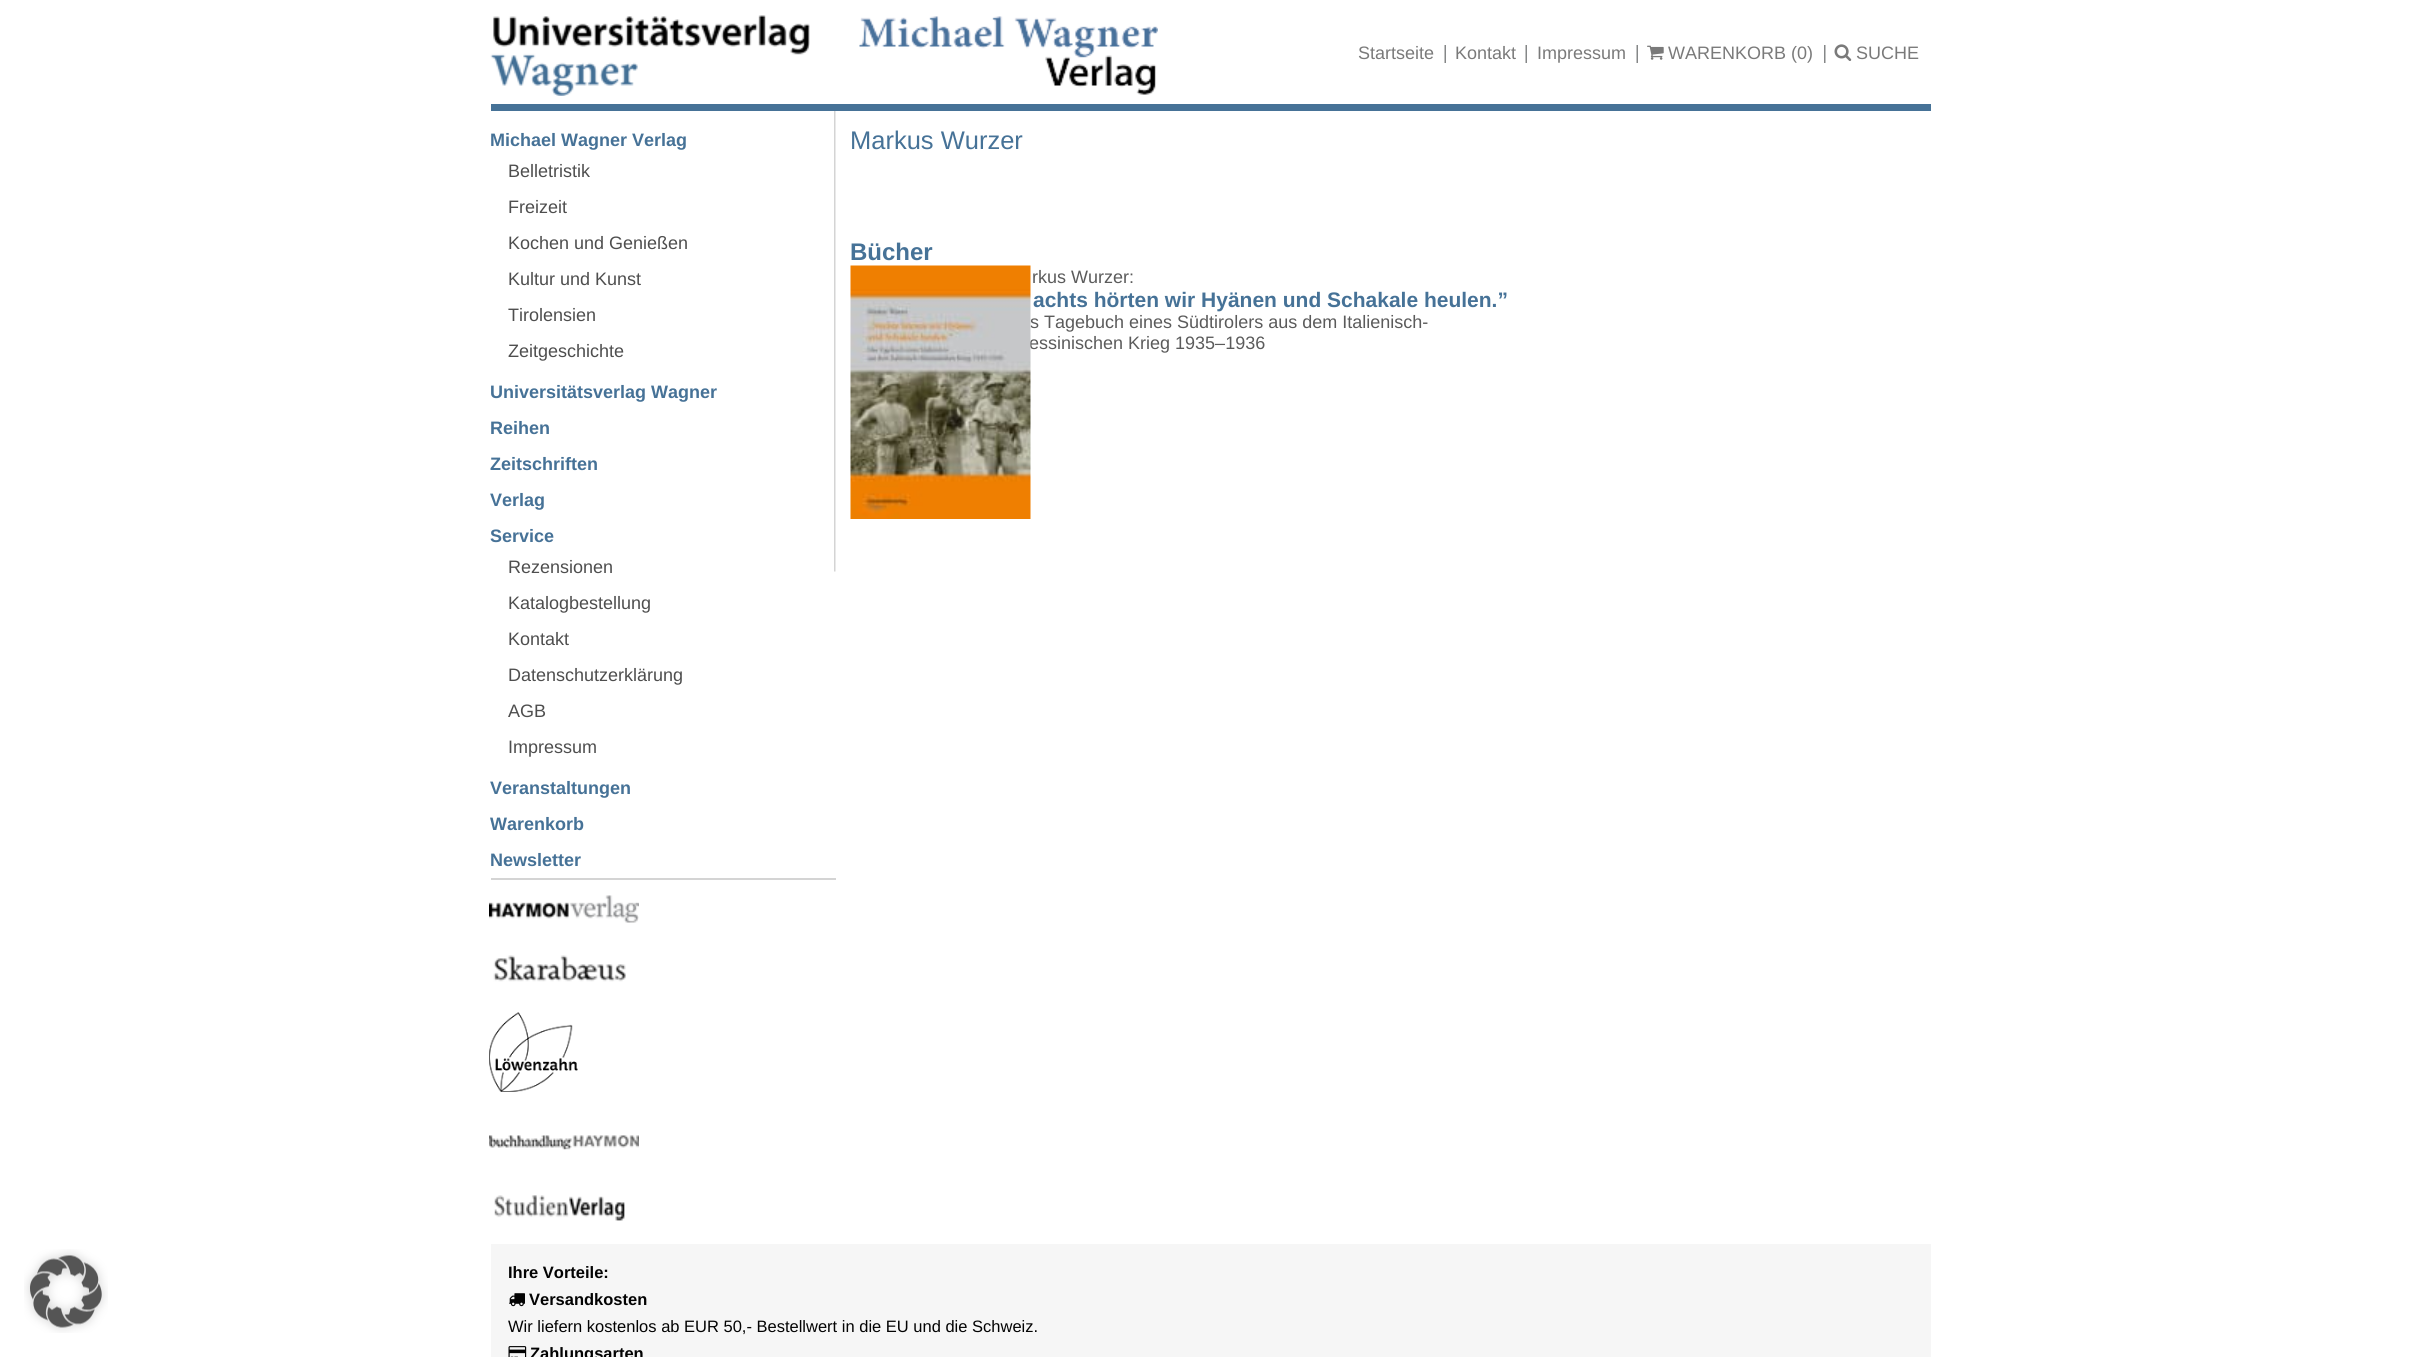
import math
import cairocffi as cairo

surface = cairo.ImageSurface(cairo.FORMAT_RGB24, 2419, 1357)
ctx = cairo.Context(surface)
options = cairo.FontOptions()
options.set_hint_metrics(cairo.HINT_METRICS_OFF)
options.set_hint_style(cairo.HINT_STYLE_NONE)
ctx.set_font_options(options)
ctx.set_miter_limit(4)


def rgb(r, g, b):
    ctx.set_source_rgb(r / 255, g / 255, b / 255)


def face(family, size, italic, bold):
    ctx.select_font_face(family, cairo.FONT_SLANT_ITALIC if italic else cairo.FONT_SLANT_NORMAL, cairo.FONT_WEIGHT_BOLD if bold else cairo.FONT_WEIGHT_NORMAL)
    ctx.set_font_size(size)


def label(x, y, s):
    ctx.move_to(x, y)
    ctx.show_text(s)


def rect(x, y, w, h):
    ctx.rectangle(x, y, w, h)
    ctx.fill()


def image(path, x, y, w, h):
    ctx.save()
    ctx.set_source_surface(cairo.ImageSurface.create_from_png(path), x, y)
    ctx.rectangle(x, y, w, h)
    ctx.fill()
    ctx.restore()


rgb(255, 255, 255)
ctx.paint()
rgb(70, 114, 151)
rect(491, 104, 1440, 7)
image('image0.png', 490, 15, 320, 81)
image('image1.png', 859, 16, 299, 79)
face('Liberation Sans', 18, 0, 0)
rgb(122, 122, 122)
label(1358, 59, 'Startseite')
image('image2.png', 1444, 45, 2, 18)
label(1455, 59, 'Kontakt')
image('image2.png', 1525, 45, 2, 18)
label(1537, 59, 'Impressum')
image('image2.png', 1636, 45, 2, 18)
image('image3.png', 1647, 45, 17, 15)
label(1668, 59, 'WARENKORB (0)')
image('image4.png', 1824, 45, 2, 18)
image('image5.png', 1834, 44, 18, 17)
label(1856, 59, 'SUCHE')
image('image6.png', 834, 111, 2, 461)
face('Liberation Sans', 18, 0, 1)
rgb(70, 114, 151)
label(490, 146, 'Michael Wagner Verlag')
face('Liberation Sans', 18, 0, 0)
rgb(78, 78, 78)
label(508, 177, 'Belletristik')
label(508, 213, 'Freizeit')
label(508, 249, 'Kochen und Genießen')
label(508, 285, 'Kultur und Kunst')
label(508, 321, 'Tirolensien')
label(508, 357, 'Zeitgeschichte')
face('Liberation Sans', 18, 0, 1)
rgb(70, 114, 151)
label(490, 398, 'Universitätsverlag Wagner')
label(490, 434, 'Reihen')
label(490, 470, 'Zeitschriften')
label(490, 506, 'Verlag')
label(490, 542, 'Service')
face('Liberation Sans', 18, 0, 0)
rgb(78, 78, 78)
label(508, 573, 'Rezensionen')
label(508, 609, 'Katalogbestellung')
label(508, 645, 'Kontakt')
label(508, 681, 'Datenschutzerklärung')
label(508, 717, 'AGB')
label(508, 753, 'Impressum')
face('Liberation Sans', 18, 0, 1)
rgb(70, 114, 151)
label(490, 794, 'Veranstaltungen')
label(490, 830, 'Warenkorb')
label(490, 866, 'Newsletter')
rgb(212, 212, 212)
rect(491, 878, 345, 2)
image('image7.png', 489, 895, 150, 28)
image('image8.png', 493, 955, 133, 27)
image('image9.png', 489, 1012, 89, 80)
image('image10.png', 489, 1135, 150, 15)
image('image11.png', 494, 1195, 131, 26)
face('Liberation Sans', 25.5, 0, 0)
rgb(70, 114, 151)
label(850, 149, 'Markus Wurzer')
face('Liberation Sans', 24, 0, 1)
label(850, 260, 'Bücher')
face('Liberation Sans', 18, 0, 0)
rgb(91, 91, 91)
label(1030, 328, 's Tagebuch eines Südtirolers aus dem Italienisch-')
label(1029, 349, 'essinischen Krieg 1935–1936')
image('image12.png', 850, 265, 181, 254)
label(1032, 283, 'rkus Wurzer:')
face('Liberation Sans', 21, 0, 1)
rgb(70, 114, 151)
label(1033, 307, 'achts hörten wir Hyänen und Schakale heulen.”')
image('image13.png', 24, 1249, 84, 84)
rgb(246, 246, 246)
rect(491, 1244, 1440, 113)
face('Liberation Sans', 16.5, 0, 1)
rgb(3, 3, 3)
label(508, 1278, 'Ihre Vorteile:')
image('image14.png', 509, 1293, 16, 14)
label(529, 1305, 'Versandkosten')
face('Liberation Sans', 16.5, 0, 0)
label(508, 1332, 'Wir liefern kostenlos ab EUR 50,- Bestellwert in die EU und die Schweiz.')
image('image15.png', 508, 1346, 19, 11)
face('Liberation Sans', 16.5, 0, 1)
label(530, 1359, 'Zahlungsarten')
surface.write_to_png('render.png')
